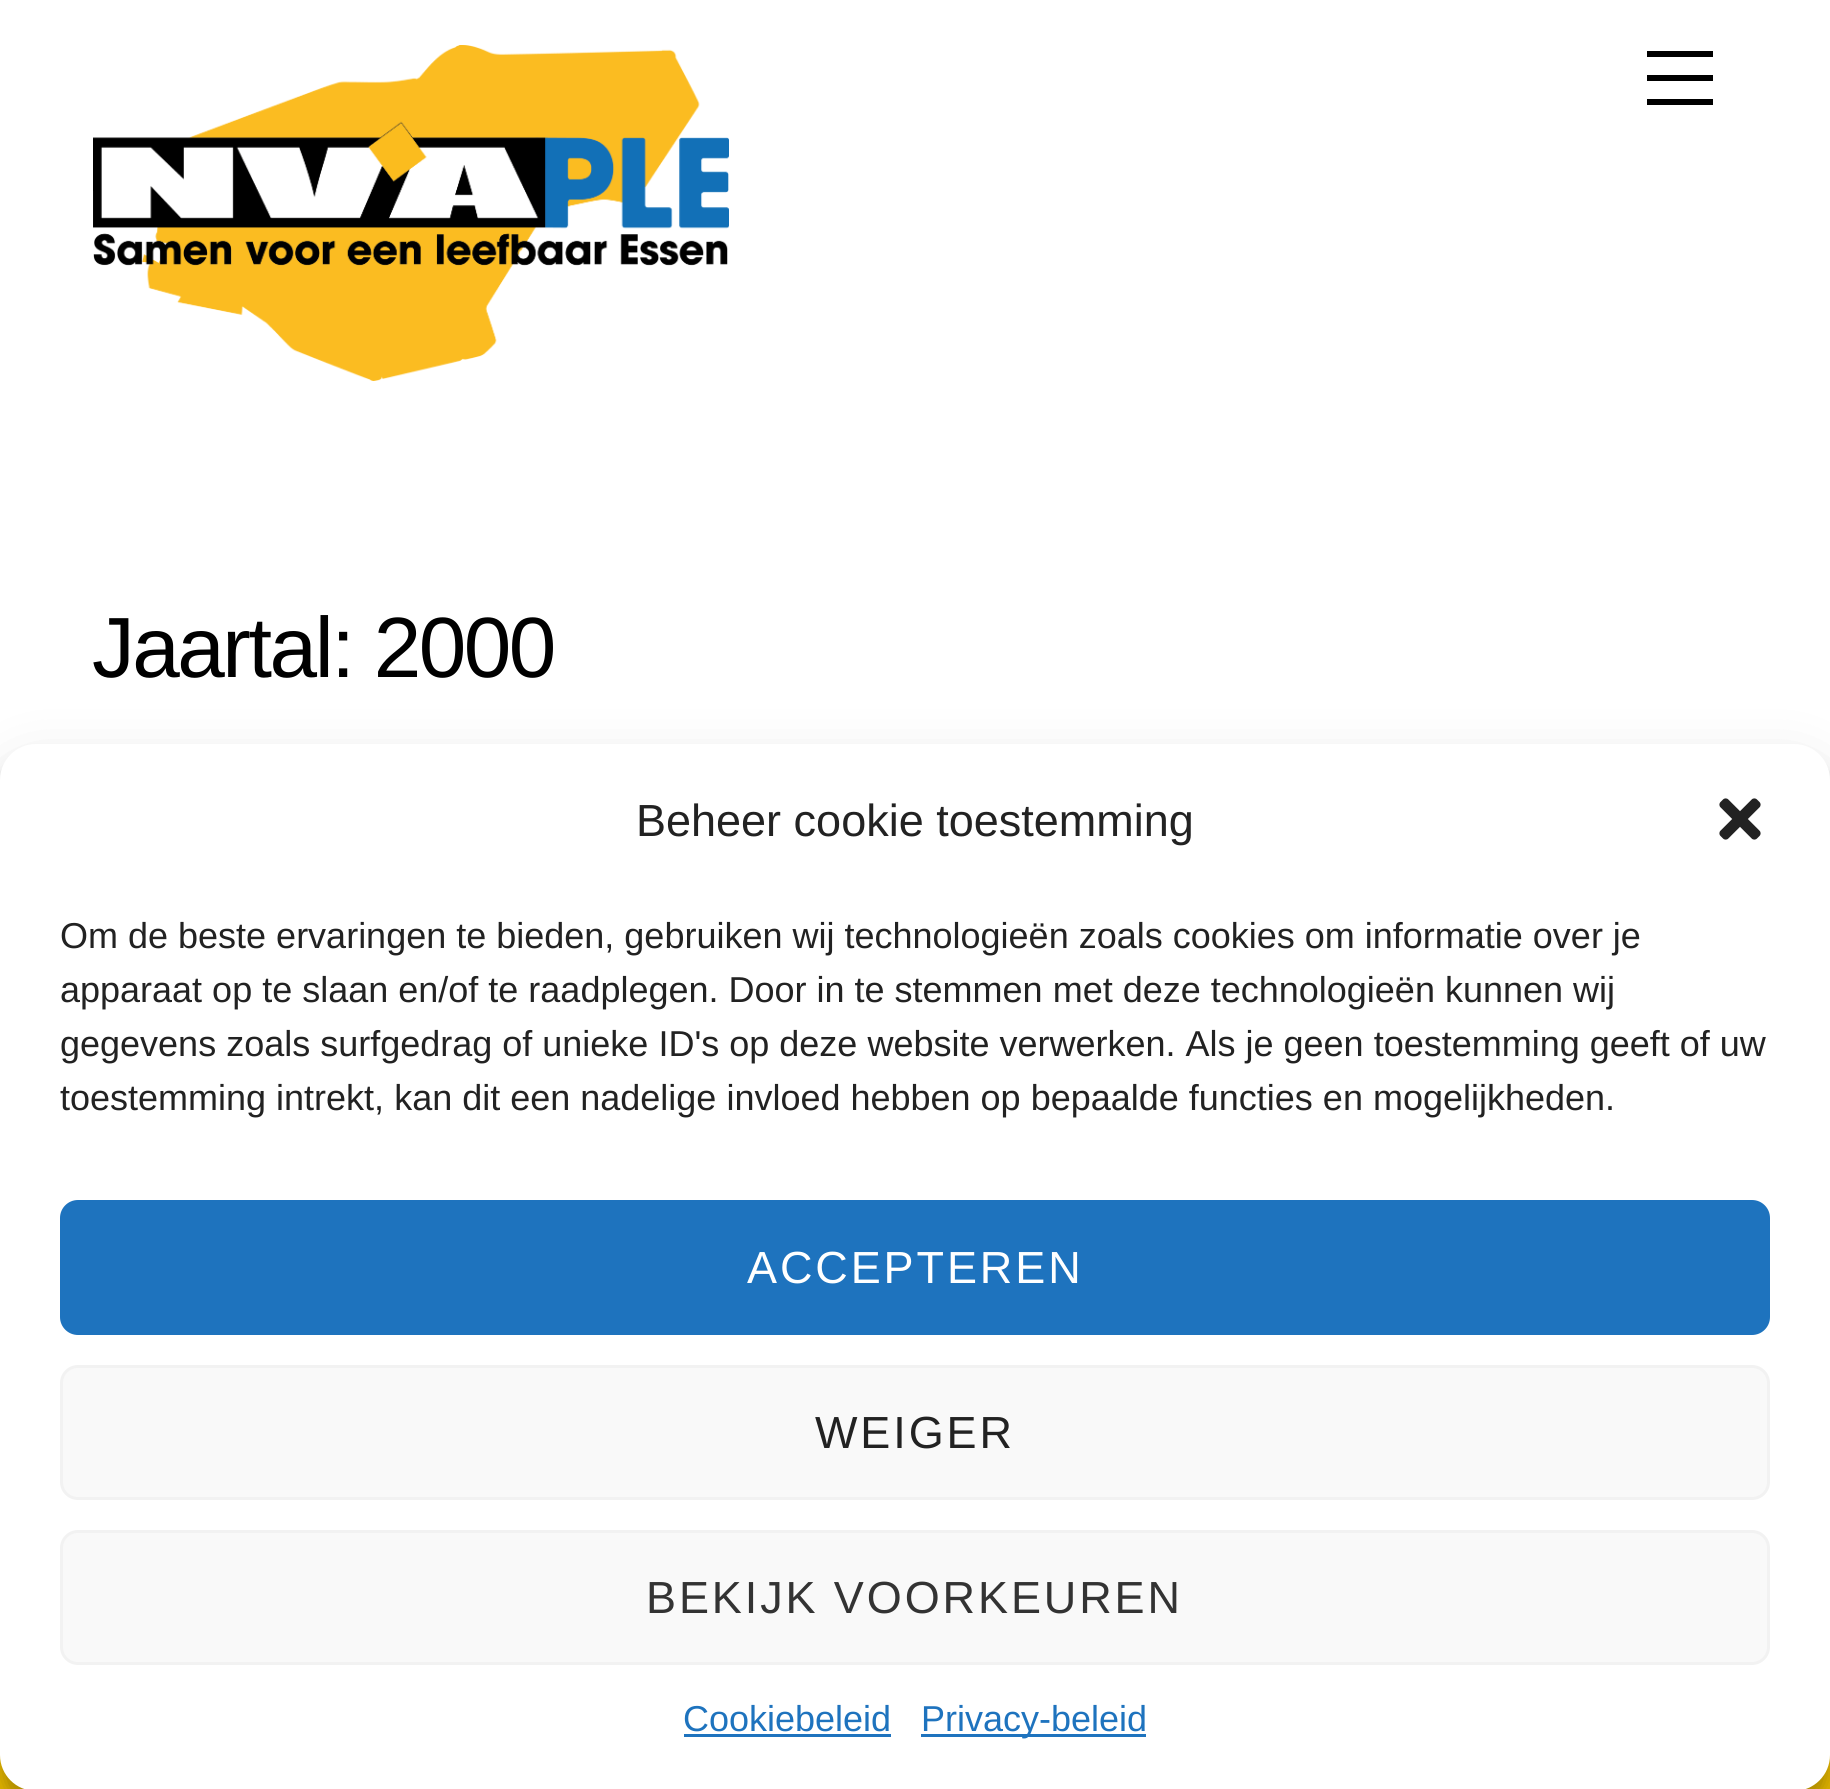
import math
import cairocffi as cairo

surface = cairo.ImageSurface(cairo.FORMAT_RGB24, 1830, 1789)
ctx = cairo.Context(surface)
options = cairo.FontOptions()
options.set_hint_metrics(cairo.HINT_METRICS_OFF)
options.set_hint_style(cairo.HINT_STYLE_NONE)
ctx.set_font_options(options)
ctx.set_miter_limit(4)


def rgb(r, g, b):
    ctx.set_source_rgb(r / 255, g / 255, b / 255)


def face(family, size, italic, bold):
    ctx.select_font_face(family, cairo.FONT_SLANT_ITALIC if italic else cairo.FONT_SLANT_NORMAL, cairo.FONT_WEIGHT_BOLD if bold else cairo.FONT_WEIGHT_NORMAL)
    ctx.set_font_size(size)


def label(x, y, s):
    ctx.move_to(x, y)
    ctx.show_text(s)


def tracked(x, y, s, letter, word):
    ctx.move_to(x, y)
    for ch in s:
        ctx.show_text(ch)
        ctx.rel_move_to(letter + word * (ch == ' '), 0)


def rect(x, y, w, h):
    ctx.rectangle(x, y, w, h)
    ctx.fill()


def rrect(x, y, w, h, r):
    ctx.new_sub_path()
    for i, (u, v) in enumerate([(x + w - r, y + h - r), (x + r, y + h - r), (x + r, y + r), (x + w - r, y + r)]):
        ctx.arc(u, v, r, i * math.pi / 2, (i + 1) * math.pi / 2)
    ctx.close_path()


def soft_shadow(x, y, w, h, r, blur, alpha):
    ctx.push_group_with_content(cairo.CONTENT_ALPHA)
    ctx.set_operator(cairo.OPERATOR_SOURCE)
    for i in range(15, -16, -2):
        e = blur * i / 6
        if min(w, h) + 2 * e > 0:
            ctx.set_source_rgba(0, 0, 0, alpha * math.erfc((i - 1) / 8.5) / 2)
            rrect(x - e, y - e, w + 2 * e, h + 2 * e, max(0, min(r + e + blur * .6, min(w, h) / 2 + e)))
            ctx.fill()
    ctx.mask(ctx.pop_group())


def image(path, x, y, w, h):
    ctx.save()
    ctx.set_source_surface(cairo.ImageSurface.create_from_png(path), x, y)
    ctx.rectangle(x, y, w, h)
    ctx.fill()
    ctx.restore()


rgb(255, 255, 255)
ctx.paint()
image('image0.png', 93, 45, 636, 336)
rgb(0, 0, 0)
rect(1647, 99, 66, 6)
rect(1647, 51, 66, 6)
rect(1647, 75, 66, 6)
face('Liberation Sans', 85.5, 0, 0)
tracked(92, 677, 'Jaartal: 2000', -2.5, 0)
rgb(255, 204, 0)
rect(0, 1755, 1830, 34)
rgb(0, 0, 0)
soft_shadow(0, 762, 1830, 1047, 36, 9, 0.23)
soft_shadow(0, 774, 1830, 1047, 36, 30, 0.19)
rgb(255, 255, 255)
rrect(0, 744, 1830, 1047, 36)
ctx.fill()
face('Liberation Sans', 45, 0, 0)
rgb(34, 34, 34)
label(636, 836, 'Beheer cookie toestemming')
image('image1.png', 1719, 798, 42, 42)
face('Liberation Sans', 36, 0, 0)
label(60, 948, 'Om de beste ervaringen te bieden, gebruiken wij technologieën zoals cookies om informatie over je')
label(60, 1002, 'apparaat op te slaan en/of te raadplegen. Door in te stemmen met deze technologieën kunnen wij')
label(60, 1056, 'gegevens zoals surfgedrag of unieke ID\'s op deze website verwerken. Als je geen toestemming geeft of uw')
label(60, 1110, 'toestemming intrekt, kan dit een nadelige invloed hebben op bepaalde functies en mogelijkheden.')
rgb(30, 115, 190)
rrect(61.5, 1201.5, 1707, 132, 16.5)
ctx.fill_preserve()
ctx.set_line_width(3)
ctx.stroke()
face('Liberation Sans', 45, 0, 0)
rgb(255, 255, 255)
tracked(747, 1283, 'ACCEPTEREN', 2.9, 0)
rgb(249, 249, 249)
rrect(61.5, 1366.5, 1707, 132, 16.5)
ctx.fill_preserve()
rgb(242, 242, 242)
ctx.stroke()
rgb(34, 34, 34)
tracked(815, 1448, 'WEIGER', 2.9, 0)
rgb(249, 249, 249)
rrect(61.5, 1531.5, 1707, 132, 16.5)
ctx.fill_preserve()
rgb(242, 242, 242)
ctx.stroke()
rgb(51, 51, 51)
tracked(646, 1613, 'BEKIJK VOORKEUREN', 2.9, 0)
face('Liberation Sans', 36, 0, 0)
rgb(30, 115, 190)
label(683, 1731, 'Cookiebeleid')
rect(684, 1734, 207, 3)
rect(921, 1734, 225, 3)
label(921, 1731, 'Privacy-beleid')
surface.write_to_png('render.png')
